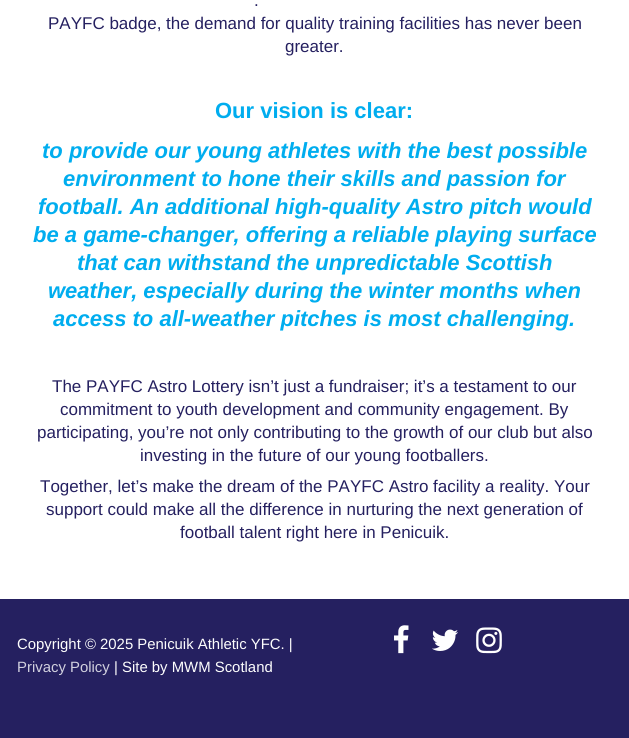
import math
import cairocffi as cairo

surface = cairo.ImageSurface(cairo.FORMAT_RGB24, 629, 738)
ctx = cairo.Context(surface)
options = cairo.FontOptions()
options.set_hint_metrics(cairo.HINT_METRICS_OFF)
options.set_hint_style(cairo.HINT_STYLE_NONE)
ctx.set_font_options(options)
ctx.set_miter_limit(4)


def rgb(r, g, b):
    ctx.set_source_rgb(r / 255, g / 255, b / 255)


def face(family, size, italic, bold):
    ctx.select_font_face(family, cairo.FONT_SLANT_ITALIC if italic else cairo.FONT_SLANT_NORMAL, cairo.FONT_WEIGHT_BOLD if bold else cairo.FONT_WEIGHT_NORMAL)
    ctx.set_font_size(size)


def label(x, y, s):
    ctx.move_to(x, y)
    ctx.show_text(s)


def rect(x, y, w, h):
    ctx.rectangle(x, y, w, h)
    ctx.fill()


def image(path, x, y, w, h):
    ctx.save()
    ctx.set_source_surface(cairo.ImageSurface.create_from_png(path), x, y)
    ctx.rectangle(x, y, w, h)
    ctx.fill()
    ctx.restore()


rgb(255, 255, 255)
ctx.paint()
face('Liberation Sans', 17, 0, 0)
rgb(37, 32, 96)
label(254, 6, '.')
label(48, 29, 'PAYFC badge, the demand for quality training facilities has never been')
label(285, 52, 'greater.')
face('Liberation Sans', 22, 0, 1)
rgb(0, 173, 239)
label(215, 118, 'Our vision is clear:')
face('Liberation Sans', 22, 1, 1)
label(42, 158, 'to provide our young athletes with the best possible')
label(63, 186, 'environment to hone their skills and passion for')
label(38, 214, 'football. An additional high-quality Astro pitch would')
label(33, 242, 'be a game-changer, offering a reliable playing surface')
label(77, 270, 'that can withstand the unpredictable Scottish')
label(48, 298, 'weather, especially during the winter months when')
label(53, 326, 'access to all-weather pitches is most challenging.')
face('Liberation Sans', 17, 0, 0)
rgb(37, 32, 96)
label(52, 392, 'The PAYFC Astro Lottery isn’t just a fundraiser; it’s a testament to our')
label(60, 415, 'commitment to youth development and community engagement. By')
label(37, 438, 'participating, you’re not only contributing to the growth of our club but also')
label(140, 461, 'investing in the future of our young footballers.')
label(40, 492, 'Together, let’s make the dream of the PAYFC Astro facility a reality. Your')
label(46, 515, 'support could make all the difference in nurturing the next generation of')
label(180, 538, 'football talent right here in Penicuik.')
rect(0, 599, 629, 139)
face('Liberation Sans', 14.9, 0, 0)
rgb(253, 253, 253)
label(17, 649, 'Copyright © 2025 Penicuik Athletic YFC. |')
rgb(209, 208, 222)
label(17, 672, 'Privacy Policy')
rgb(253, 253, 253)
label(114, 672, '| Site by MWM Scotland')
image('image0.png', 394, 625, 15, 29)
image('image1.png', 432, 629, 26, 22)
image('image2.png', 476, 627, 26, 27)
surface.write_to_png('render.png')
